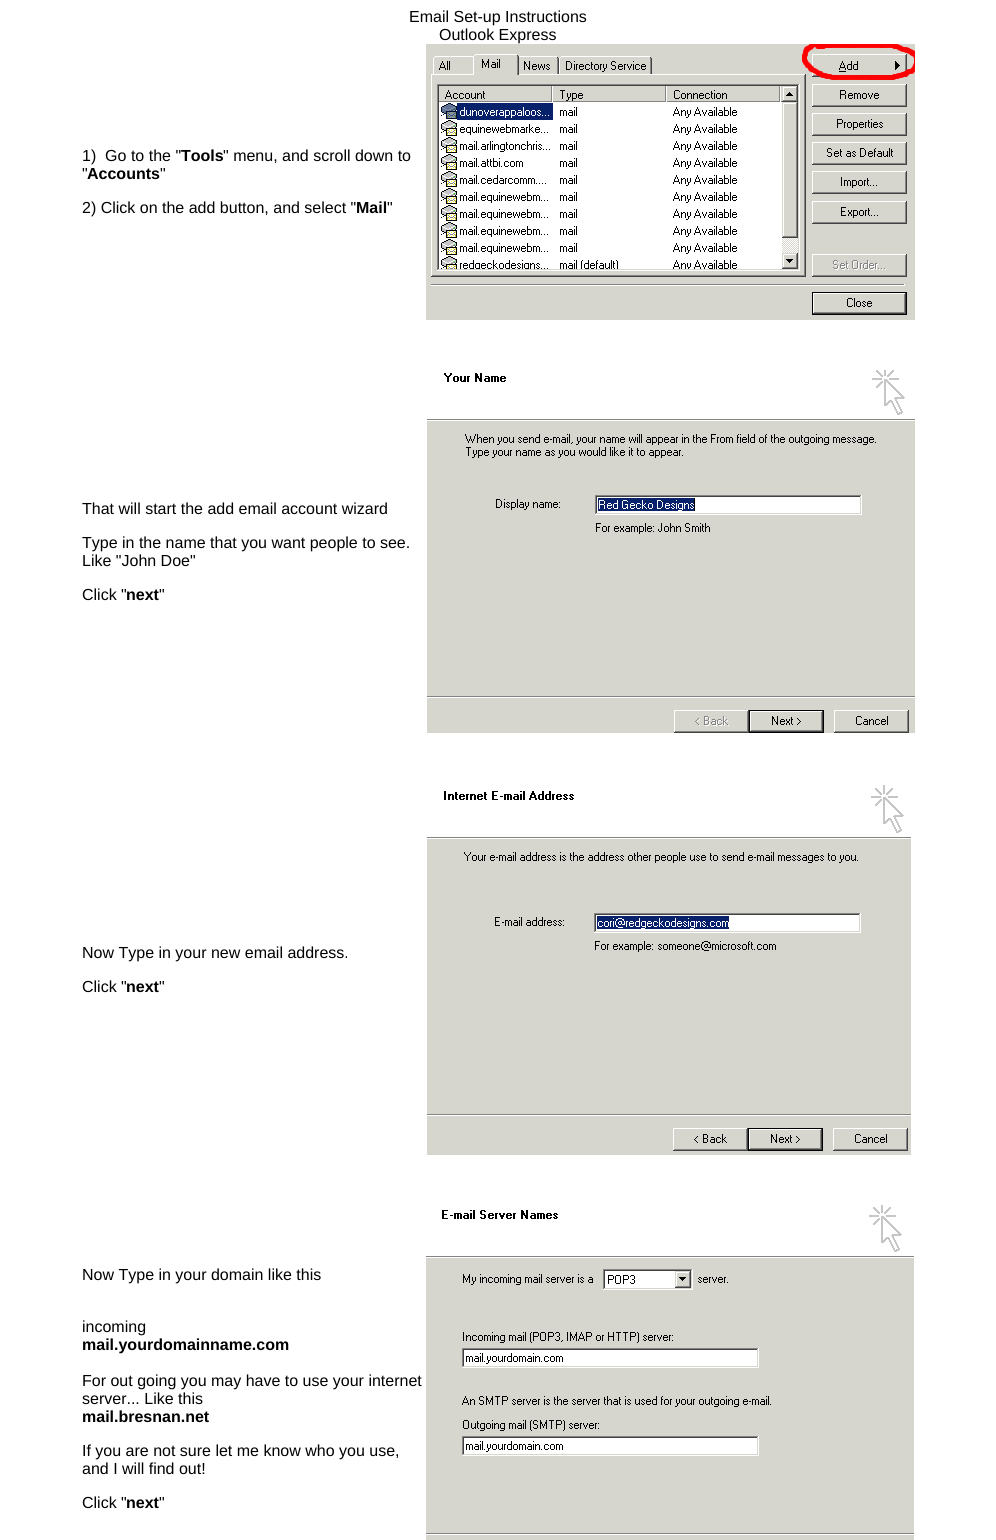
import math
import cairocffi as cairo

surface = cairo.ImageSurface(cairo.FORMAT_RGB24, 996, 1540)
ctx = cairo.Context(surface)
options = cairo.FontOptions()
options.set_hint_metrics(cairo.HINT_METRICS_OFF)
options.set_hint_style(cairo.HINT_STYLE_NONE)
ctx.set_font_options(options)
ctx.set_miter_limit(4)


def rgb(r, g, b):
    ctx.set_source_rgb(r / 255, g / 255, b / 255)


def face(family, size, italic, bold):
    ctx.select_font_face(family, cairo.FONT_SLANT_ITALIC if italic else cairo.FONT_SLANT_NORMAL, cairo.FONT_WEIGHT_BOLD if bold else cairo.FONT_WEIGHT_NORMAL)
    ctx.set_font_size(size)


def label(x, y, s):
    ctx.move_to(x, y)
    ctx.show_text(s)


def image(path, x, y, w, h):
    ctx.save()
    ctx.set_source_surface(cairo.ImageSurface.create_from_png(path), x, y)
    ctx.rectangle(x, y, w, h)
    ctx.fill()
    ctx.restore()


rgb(255, 255, 255)
ctx.paint()
face('Liberation Sans', 16, 0, 0)
rgb(0, 0, 0)
label(409, 22, 'Email Set-up Instructions')
label(439, 40, 'Outlook Express')
label(82, 161, '1)  Go to the "')
face('Liberation Sans', 16, 0, 1)
label(181, 161, 'Tools')
face('Liberation Sans', 16, 0, 0)
label(223, 161, '" menu, and scroll down to')
label(82, 179, '"')
face('Liberation Sans', 16, 0, 1)
label(87, 179, 'Accounts')
face('Liberation Sans', 16, 0, 0)
label(160, 179, '"')
label(82, 213, '2) Click on the add button, and select "')
face('Liberation Sans', 16, 0, 1)
label(356, 213, 'Mail')
face('Liberation Sans', 16, 0, 0)
label(387, 213, '"')
image('image0.png', 426, 44, 489, 276)
label(82, 514, 'That will start the add email account wizard')
label(82, 548, 'Type in the name that you want people to see.')
label(82, 566, 'Like "John Doe"')
label(82, 600, 'Click "')
face('Liberation Sans', 16, 0, 1)
label(126, 600, 'next')
face('Liberation Sans', 16, 0, 0)
label(159, 600, '"')
image('image1.png', 427, 370, 488, 363)
label(82, 958, 'Now Type in your new email address.')
label(82, 992, 'Click "')
face('Liberation Sans', 16, 0, 1)
label(126, 992, 'next')
face('Liberation Sans', 16, 0, 0)
label(159, 992, '"')
image('image2.png', 427, 785, 484, 370)
label(82, 1280, 'Now Type in your domain like this')
label(82, 1332, 'incoming')
face('Liberation Sans', 16, 0, 1)
label(82, 1350, 'mail.yourdomainname.com')
face('Liberation Sans', 16, 0, 0)
label(82, 1386, 'For out going you may have to use your internet')
label(82, 1404, 'server... Like this')
face('Liberation Sans', 16, 0, 1)
label(82, 1422, 'mail.bresnan.net')
face('Liberation Sans', 16, 0, 0)
label(82, 1456, 'If you are not sure let me know who you use,')
label(82, 1474, 'and I will find out!')
label(82, 1508, 'Click "')
face('Liberation Sans', 16, 0, 1)
label(126, 1508, 'next')
face('Liberation Sans', 16, 0, 0)
label(159, 1508, '"')
image('image3.png', 426, 1205, 488, 335)
surface.write_to_png('render.png')
